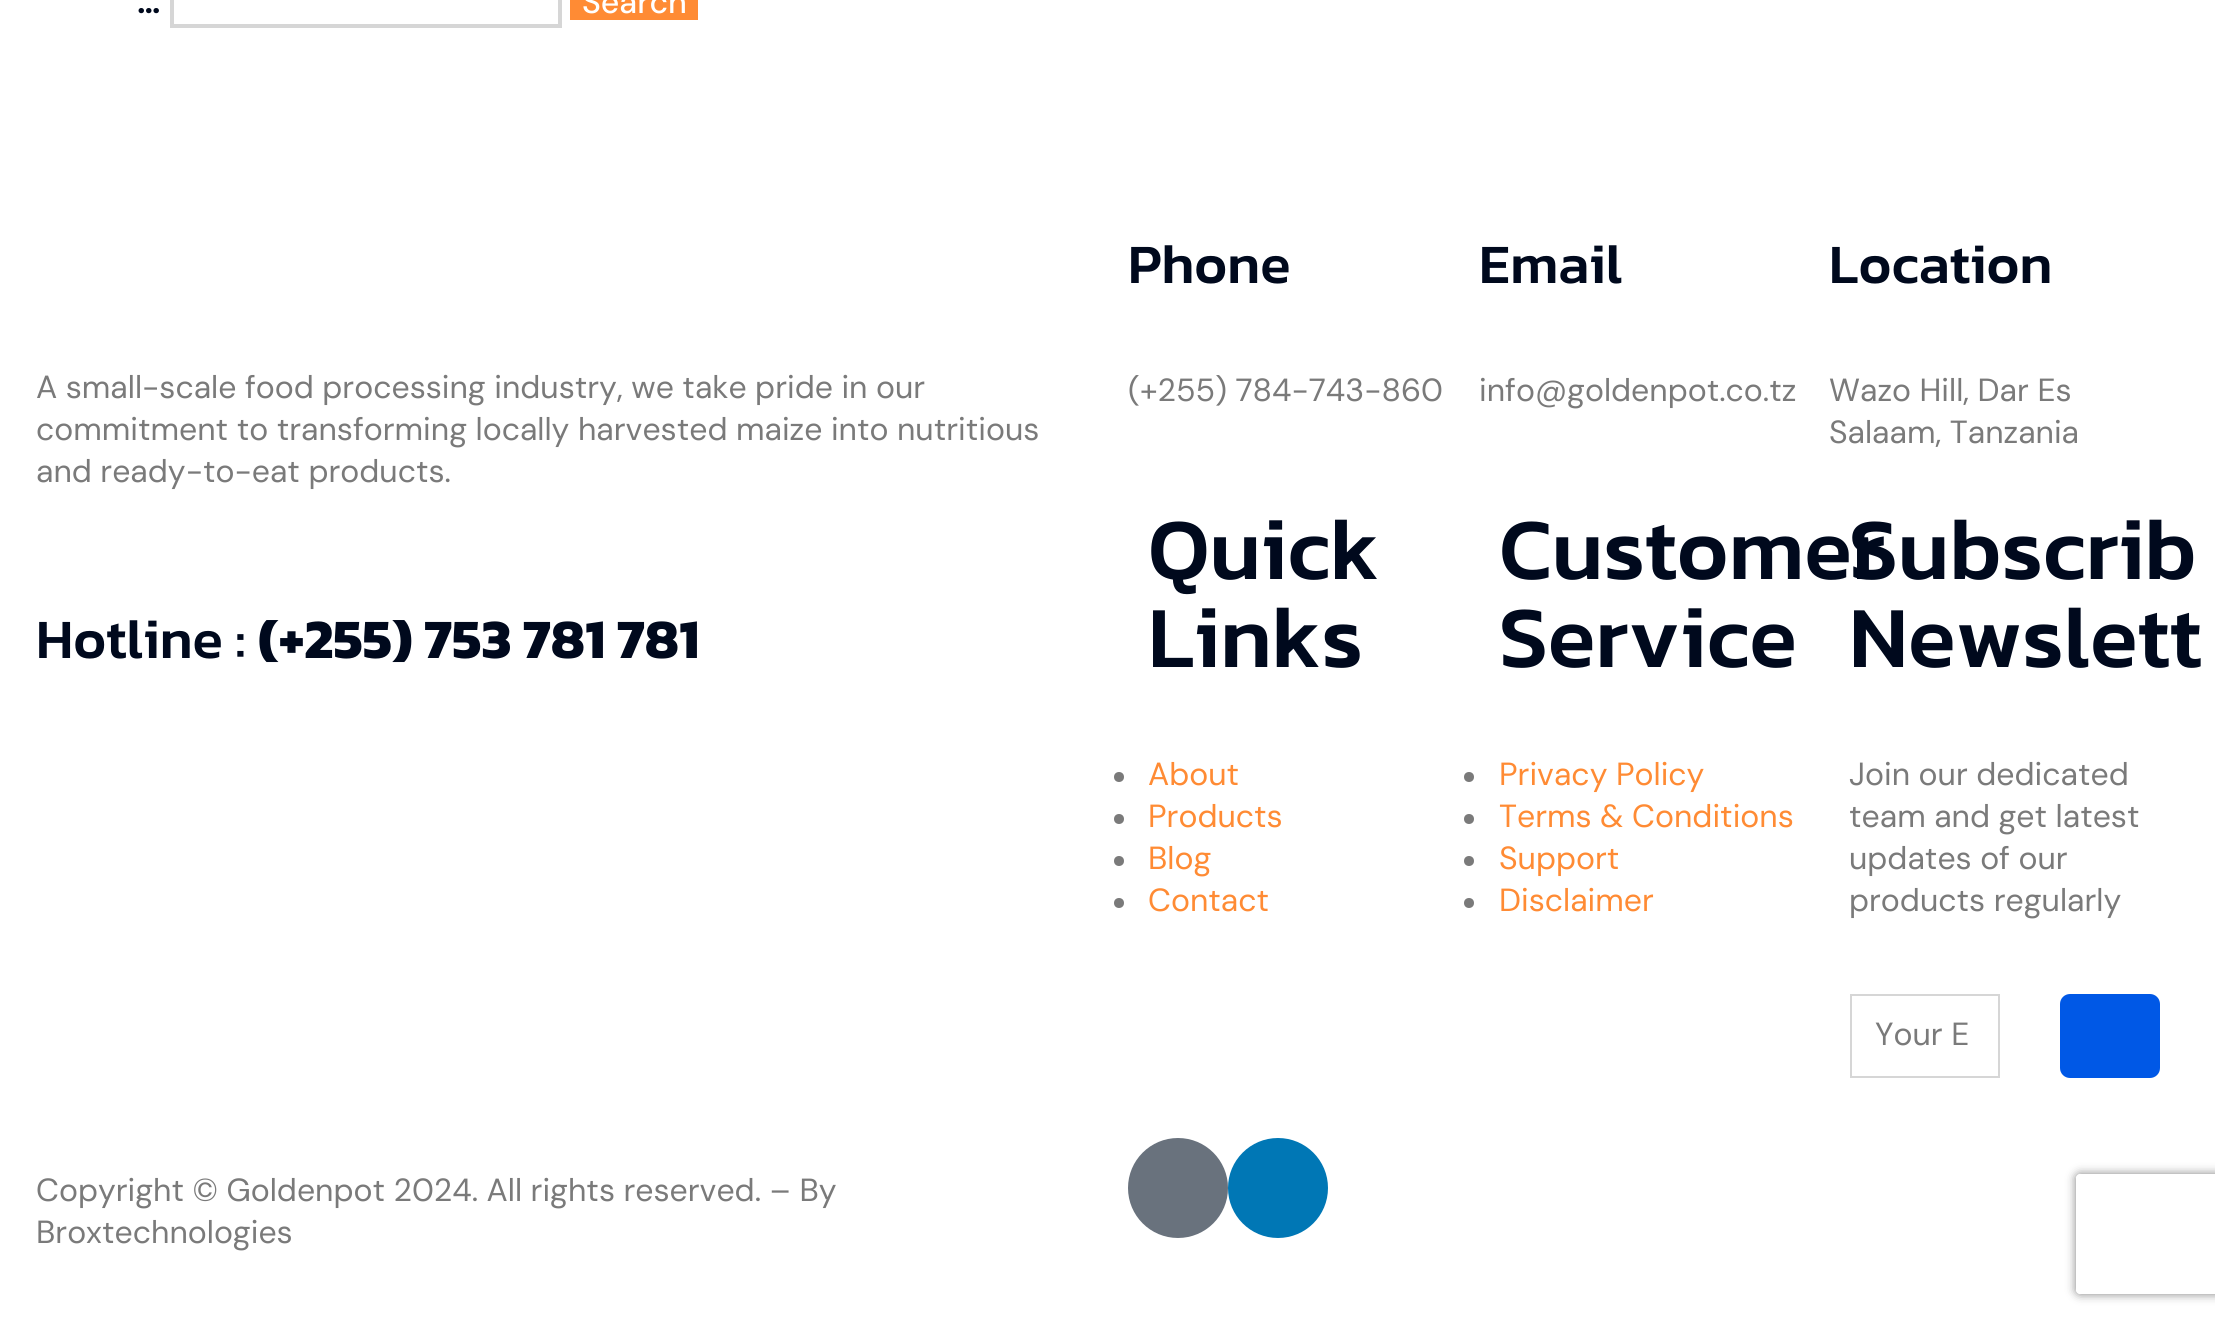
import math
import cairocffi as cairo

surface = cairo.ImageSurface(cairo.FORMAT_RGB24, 2215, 1322)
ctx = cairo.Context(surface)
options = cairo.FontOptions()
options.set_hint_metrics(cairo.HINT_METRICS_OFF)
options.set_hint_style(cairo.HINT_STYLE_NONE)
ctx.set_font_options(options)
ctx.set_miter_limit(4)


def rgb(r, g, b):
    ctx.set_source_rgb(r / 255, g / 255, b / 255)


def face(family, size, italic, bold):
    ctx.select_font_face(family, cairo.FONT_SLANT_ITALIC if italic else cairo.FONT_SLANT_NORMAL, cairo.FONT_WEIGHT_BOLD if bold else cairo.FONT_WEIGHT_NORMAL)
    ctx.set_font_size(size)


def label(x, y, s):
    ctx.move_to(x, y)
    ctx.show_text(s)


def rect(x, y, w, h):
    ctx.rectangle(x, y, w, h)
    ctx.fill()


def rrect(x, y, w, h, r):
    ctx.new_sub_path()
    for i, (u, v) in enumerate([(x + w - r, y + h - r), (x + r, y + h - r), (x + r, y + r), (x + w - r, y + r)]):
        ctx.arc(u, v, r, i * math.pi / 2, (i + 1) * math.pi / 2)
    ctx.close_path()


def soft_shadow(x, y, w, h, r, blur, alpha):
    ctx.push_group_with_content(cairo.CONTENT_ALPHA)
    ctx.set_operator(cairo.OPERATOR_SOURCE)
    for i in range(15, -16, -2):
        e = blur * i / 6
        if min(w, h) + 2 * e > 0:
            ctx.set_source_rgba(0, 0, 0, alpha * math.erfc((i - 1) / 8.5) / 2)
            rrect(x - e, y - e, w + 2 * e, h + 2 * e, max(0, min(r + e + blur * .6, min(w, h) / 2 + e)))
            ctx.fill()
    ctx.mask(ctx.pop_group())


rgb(255, 255, 255)
ctx.paint()
face('DM Sans SemiBold', 36, 0, 0)
rgb(0, 9, 29)
label(137, 13, '…')
ctx.rectangle(172, -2, 388, 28)
rgb(214, 214, 214)
ctx.set_line_width(4)
ctx.stroke()
rgb(255, 139, 52)
rect(570, 0, 128, 20)
face('DM Sans Medium', 32, 0, 0)
rgb(255, 255, 255)
label(582, 13, 'Search')
face('DM Sans', 32, 0, 0)
rgb(122, 122, 122)
label(36, 398, 'A small-scale food processing industry, we take pride in our')
label(36, 440, 'commitment to transforming locally harvested maize into nutritious')
label(36, 482, 'and ready-to-eat products.')
face('Kanit Medium', 56, 0, 0)
rgb(0, 9, 29)
label(36, 658, 'Hotline :')
face('Kanit', 56, 0, 1)
label(258, 658, '(+255) 753 781 781')
face('Kanit Medium', 56, 0, 0)
label(1128, 283, 'Phone')
face('DM Sans', 32, 0, 0)
rgb(122, 122, 122)
label(1128, 401, '(+255) 784-743-860')
face('Kanit Medium', 56, 0, 0)
rgb(0, 9, 29)
label(1479, 283, 'Email')
face('DM Sans', 32, 0, 0)
rgb(122, 122, 122)
label(1479, 401, 'info@goldenpot.co.tz')
face('Kanit Medium', 56, 0, 0)
rgb(0, 9, 29)
label(1829, 283, 'Location')
face('DM Sans', 32, 0, 0)
rgb(122, 122, 122)
label(1829, 401, 'Wazo Hill, Dar Es')
label(1829, 443, 'Salaam, Tanzania')
face('Kanit Medium', 88, 0, 0)
rgb(0, 9, 29)
label(1148, 579, 'Quick')
label(1148, 667, 'Links')
rgb(122, 122, 122)
ctx.new_path()
ctx.arc(1119, 777, 5, 0, 2 * math.pi)
ctx.fill()
face('DM Sans', 32, 0, 0)
rgb(255, 139, 52)
label(1148, 785, 'About')
rgb(122, 122, 122)
ctx.new_path()
ctx.arc(1119, 819, 5, 0, 2 * math.pi)
ctx.fill()
rgb(255, 139, 52)
label(1148, 827, 'Products')
rgb(122, 122, 122)
ctx.new_path()
ctx.arc(1119, 861, 5, 0, 2 * math.pi)
ctx.fill()
rgb(255, 139, 52)
label(1148, 869, 'Blog')
rgb(122, 122, 122)
ctx.new_path()
ctx.arc(1119, 903, 5, 0, 2 * math.pi)
ctx.fill()
rgb(255, 139, 52)
label(1148, 911, 'Contact')
face('Kanit Medium', 88, 0, 0)
rgb(0, 9, 29)
label(1499, 579, 'Customer')
label(1499, 667, 'Service')
rgb(122, 122, 122)
ctx.new_path()
ctx.arc(1469, 777, 5, 0, 2 * math.pi)
ctx.fill()
face('DM Sans', 32, 0, 0)
rgb(255, 139, 52)
label(1499, 785, 'Privacy Policy')
rgb(122, 122, 122)
ctx.new_path()
ctx.arc(1469, 819, 5, 0, 2 * math.pi)
ctx.fill()
rgb(255, 139, 52)
label(1499, 827, 'Terms & Conditions')
rgb(122, 122, 122)
ctx.new_path()
ctx.arc(1469, 861, 5, 0, 2 * math.pi)
ctx.fill()
rgb(255, 139, 52)
label(1499, 869, 'Support')
rgb(122, 122, 122)
ctx.new_path()
ctx.arc(1469, 903, 5, 0, 2 * math.pi)
ctx.fill()
rgb(255, 139, 52)
label(1499, 911, 'Disclaimer')
face('Kanit Medium', 88, 0, 0)
rgb(0, 9, 29)
label(1849, 579, 'Subscrib')
label(1849, 667, 'Newslett')
face('DM Sans', 32, 0, 0)
rgb(122, 122, 122)
label(1849, 785, 'Join our dedicated')
label(1849, 827, 'team and get latest')
label(1849, 869, 'updates of our')
label(1849, 911, 'products regularly')
ctx.rectangle(1851, 995, 148, 82)
rgb(214, 214, 214)
ctx.set_line_width(2)
ctx.stroke()
rgb(122, 122, 122)
label(1875, 1045, 'Your E')
rgb(0, 88, 230)
rrect(2060, 994, 100, 84, 10)
ctx.fill()
rgb(122, 122, 122)
label(36, 1201, 'Copyright © Goldenpot 2024. All rights reserved. – By')
label(36, 1243, 'Broxtechnologies')
rgb(105, 114, 125)
ctx.new_path()
ctx.arc(1178, 1188, 50, 0, 2 * math.pi)
ctx.fill()
rgb(0, 119, 181)
ctx.arc(1278, 1188, 50, 0, 2 * math.pi)
ctx.fill()
ctx.save()
ctx.set_fill_rule(cairo.FILL_RULE_EVEN_ODD)
ctx.new_path()
ctx.move_to(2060, 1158)
ctx.line_to(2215, 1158)
ctx.line_to(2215, 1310)
ctx.line_to(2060, 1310)
ctx.close_path()
ctx.move_to(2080, 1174)
ctx.line_to(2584, 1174)
ctx.curve_to(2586, 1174, 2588, 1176, 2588, 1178)
ctx.line_to(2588, 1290)
ctx.curve_to(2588, 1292, 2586, 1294, 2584, 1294)
ctx.line_to(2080, 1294)
ctx.curve_to(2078, 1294, 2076, 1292, 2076, 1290)
ctx.line_to(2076, 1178)
ctx.curve_to(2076, 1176, 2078, 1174, 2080, 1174)
ctx.close_path()
ctx.clip()
rgb(128, 128, 128)
soft_shadow(2076, 1174, 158, 120, 4, 5, 1)
ctx.restore()
surface.write_to_png('render.png')
